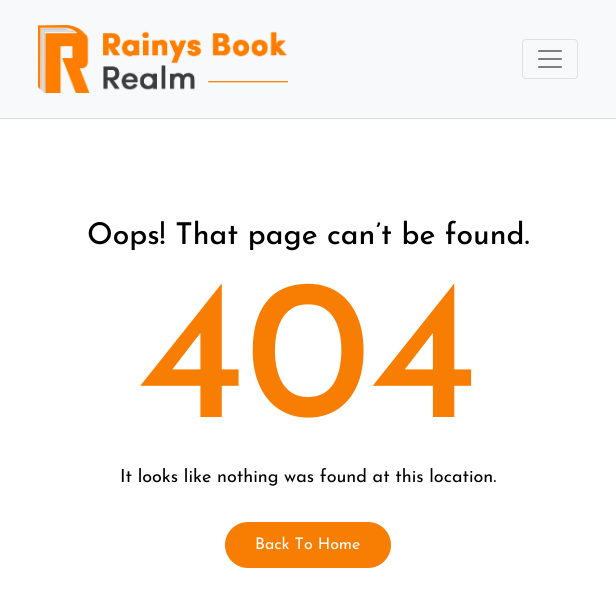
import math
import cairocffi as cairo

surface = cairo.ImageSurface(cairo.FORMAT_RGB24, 616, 596)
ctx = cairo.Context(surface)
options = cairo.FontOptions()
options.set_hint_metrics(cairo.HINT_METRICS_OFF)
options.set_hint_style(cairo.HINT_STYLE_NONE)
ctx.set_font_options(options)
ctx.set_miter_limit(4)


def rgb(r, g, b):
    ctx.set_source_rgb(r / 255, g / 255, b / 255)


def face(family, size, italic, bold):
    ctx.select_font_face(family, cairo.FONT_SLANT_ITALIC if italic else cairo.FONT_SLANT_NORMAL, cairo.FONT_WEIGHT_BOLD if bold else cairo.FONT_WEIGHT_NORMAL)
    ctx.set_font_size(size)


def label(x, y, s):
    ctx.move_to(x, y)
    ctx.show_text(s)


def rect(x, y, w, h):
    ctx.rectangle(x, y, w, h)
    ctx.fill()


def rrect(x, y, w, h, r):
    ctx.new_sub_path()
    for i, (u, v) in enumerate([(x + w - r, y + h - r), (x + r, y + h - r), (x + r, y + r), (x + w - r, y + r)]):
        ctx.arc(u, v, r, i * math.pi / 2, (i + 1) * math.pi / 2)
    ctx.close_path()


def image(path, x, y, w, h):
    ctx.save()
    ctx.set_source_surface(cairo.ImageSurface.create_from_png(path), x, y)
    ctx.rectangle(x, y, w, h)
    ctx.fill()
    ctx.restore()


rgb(255, 255, 255)
ctx.paint()
rgb(221, 221, 221)
rect(0, 118, 616, 1)
rgb(248, 249, 250)
rect(0, 0, 616, 118)
image('image0.png', 38, 25, 250, 68)
rrect(522.5, 39.5, 55, 39, 3.5)
rgb(223, 224, 225)
ctx.set_line_width(1)
ctx.stroke()
image('image1.png', 538, 50, 24, 18)
face('Josefin Sans Medium', 30, 0, 0)
rgb(0, 0, 0)
label(87, 244, 'Oops! That page can’t be found.')
face('Josefin Sans Medium', 200, 0, 0)
rgb(247, 126, 3)
label(138, 417, '404')
face('Josefin Sans', 18, 0, 0)
rgb(0, 0, 0)
label(120, 482, 'It looks like nothing was found at this location.')
rgb(247, 126, 3)
rrect(225, 522, 166, 46, 23)
ctx.fill()
face('Josefin Sans', 16, 0, 0)
rgb(255, 255, 255)
label(255, 549, 'Back To Home')
surface.write_to_png('render.png')
